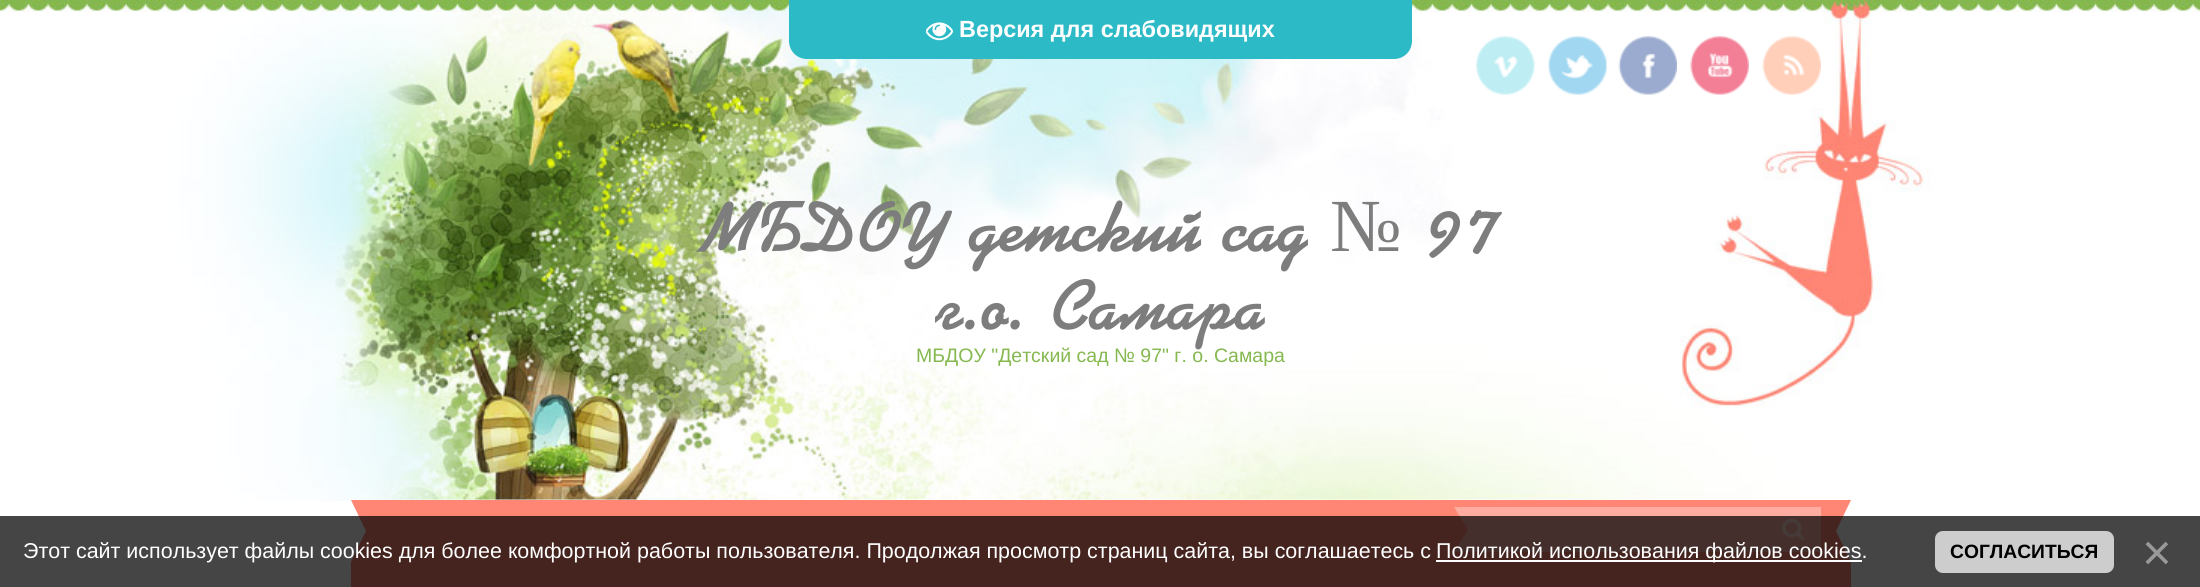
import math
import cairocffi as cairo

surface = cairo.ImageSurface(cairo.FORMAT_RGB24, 2200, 587)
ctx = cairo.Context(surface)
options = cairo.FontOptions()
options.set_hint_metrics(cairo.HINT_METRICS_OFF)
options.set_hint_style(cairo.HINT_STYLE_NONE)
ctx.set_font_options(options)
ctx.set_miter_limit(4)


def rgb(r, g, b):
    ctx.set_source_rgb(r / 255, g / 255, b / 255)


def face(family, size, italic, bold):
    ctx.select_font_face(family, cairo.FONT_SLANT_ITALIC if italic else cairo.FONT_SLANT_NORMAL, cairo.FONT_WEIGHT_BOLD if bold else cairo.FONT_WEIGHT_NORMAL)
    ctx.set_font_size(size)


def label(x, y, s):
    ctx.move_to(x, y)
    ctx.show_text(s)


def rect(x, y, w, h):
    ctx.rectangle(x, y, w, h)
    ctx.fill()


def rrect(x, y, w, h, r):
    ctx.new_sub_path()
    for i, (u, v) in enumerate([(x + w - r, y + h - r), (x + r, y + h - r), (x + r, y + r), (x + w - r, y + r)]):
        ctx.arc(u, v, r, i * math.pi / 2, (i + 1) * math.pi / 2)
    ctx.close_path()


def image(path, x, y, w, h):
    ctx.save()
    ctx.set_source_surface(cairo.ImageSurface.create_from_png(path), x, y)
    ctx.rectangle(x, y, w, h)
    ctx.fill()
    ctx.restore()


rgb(255, 255, 255)
ctx.paint()
image('image1.png', 0, 0, 2200, 501)
rgb(44, 186, 199)
ctx.new_path()
ctx.move_to(789, 0)
ctx.line_to(1412, 0)
ctx.line_to(1412, 41)
ctx.curve_to(1412, 51, 1404, 59, 1394, 59)
ctx.line_to(807, 59)
ctx.curve_to(797, 59, 789, 51, 789, 41)
ctx.close_path()
ctx.fill()
image('image0.png', 926, 22, 27, 19)
face('Liberation Sans', 23.4, 0, 1)
rgb(255, 255, 255)
label(959, 37, 'Версия для слабовидящих')
image('image2.png', 1476, 36, 59, 59)
image('image3.png', 1548, 36, 59, 59)
image('image4.png', 1618, 36, 59, 59)
image('image5.png', 1690, 36, 59, 59)
image('image6.png', 1762, 36, 59, 59)
face('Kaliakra', 75, 0, 0)
rgb(125, 125, 125)
label(702, 251, 'МБДОУ детский сад')
face('Liberation Serif', 75, 0, 0)
label(1330, 251, '№')
face('Kaliakra', 75, 0, 0)
label(1423, 251, '97')
label(935, 329, 'г.о. Самара')
face('Liberation Sans', 19.5, 0, 0)
rgb(133, 184, 79)
label(916, 362, 'МБДОУ "Детский сад № 97" г. о. Самара')
rgb(255, 133, 116)
rect(351, 500, 1500, 87)
rgb(255, 255, 255)
ctx.new_path()
ctx.move_to(351, 562)
ctx.line_to(351, 500)
ctx.line_to(366, 531)
ctx.close_path()
ctx.fill()
rgb(255, 172, 161)
rect(1454, 507, 367, 45)
rgb(255, 133, 116)
ctx.new_path()
ctx.move_to(1454, 552)
ctx.line_to(1454, 507)
ctx.line_to(1468, 530)
ctx.close_path()
ctx.fill()
image('image7.png', 1782, 519, 23, 21)
rgb(255, 255, 255)
ctx.new_path()
ctx.move_to(1851, 500)
ctx.line_to(1851, 562)
ctx.line_to(1836, 531)
ctx.close_path()
ctx.fill()
ctx.set_source_rgba(0, 0, 0, 0.73)
rect(0, 516, 2200, 71)
face('Liberation Sans', 21.45, 0, 0)
rgb(255, 255, 255)
label(23, 558, 'Этот сайт использует файлы cookies для более комфортной работы пользователя. Продолжая просмотр страниц сайта, вы соглашаетесь с')
rect(1436, 560, 426, 2)
label(1436, 558, 'Политикой использования файлов cookies.')
rgb(205, 205, 205)
rrect(1935, 531, 179, 42, 8)
ctx.fill()
face('Liberation Sans', 19.25, 0, 1)
rgb(0, 0, 0)
label(1950, 558, 'СОГЛАСИТЬСЯ')
face('Liberation Sans', 51, 0, 0)
rgb(153, 153, 153)
label(2142, 570, '×')
surface.write_to_png('render.png')
